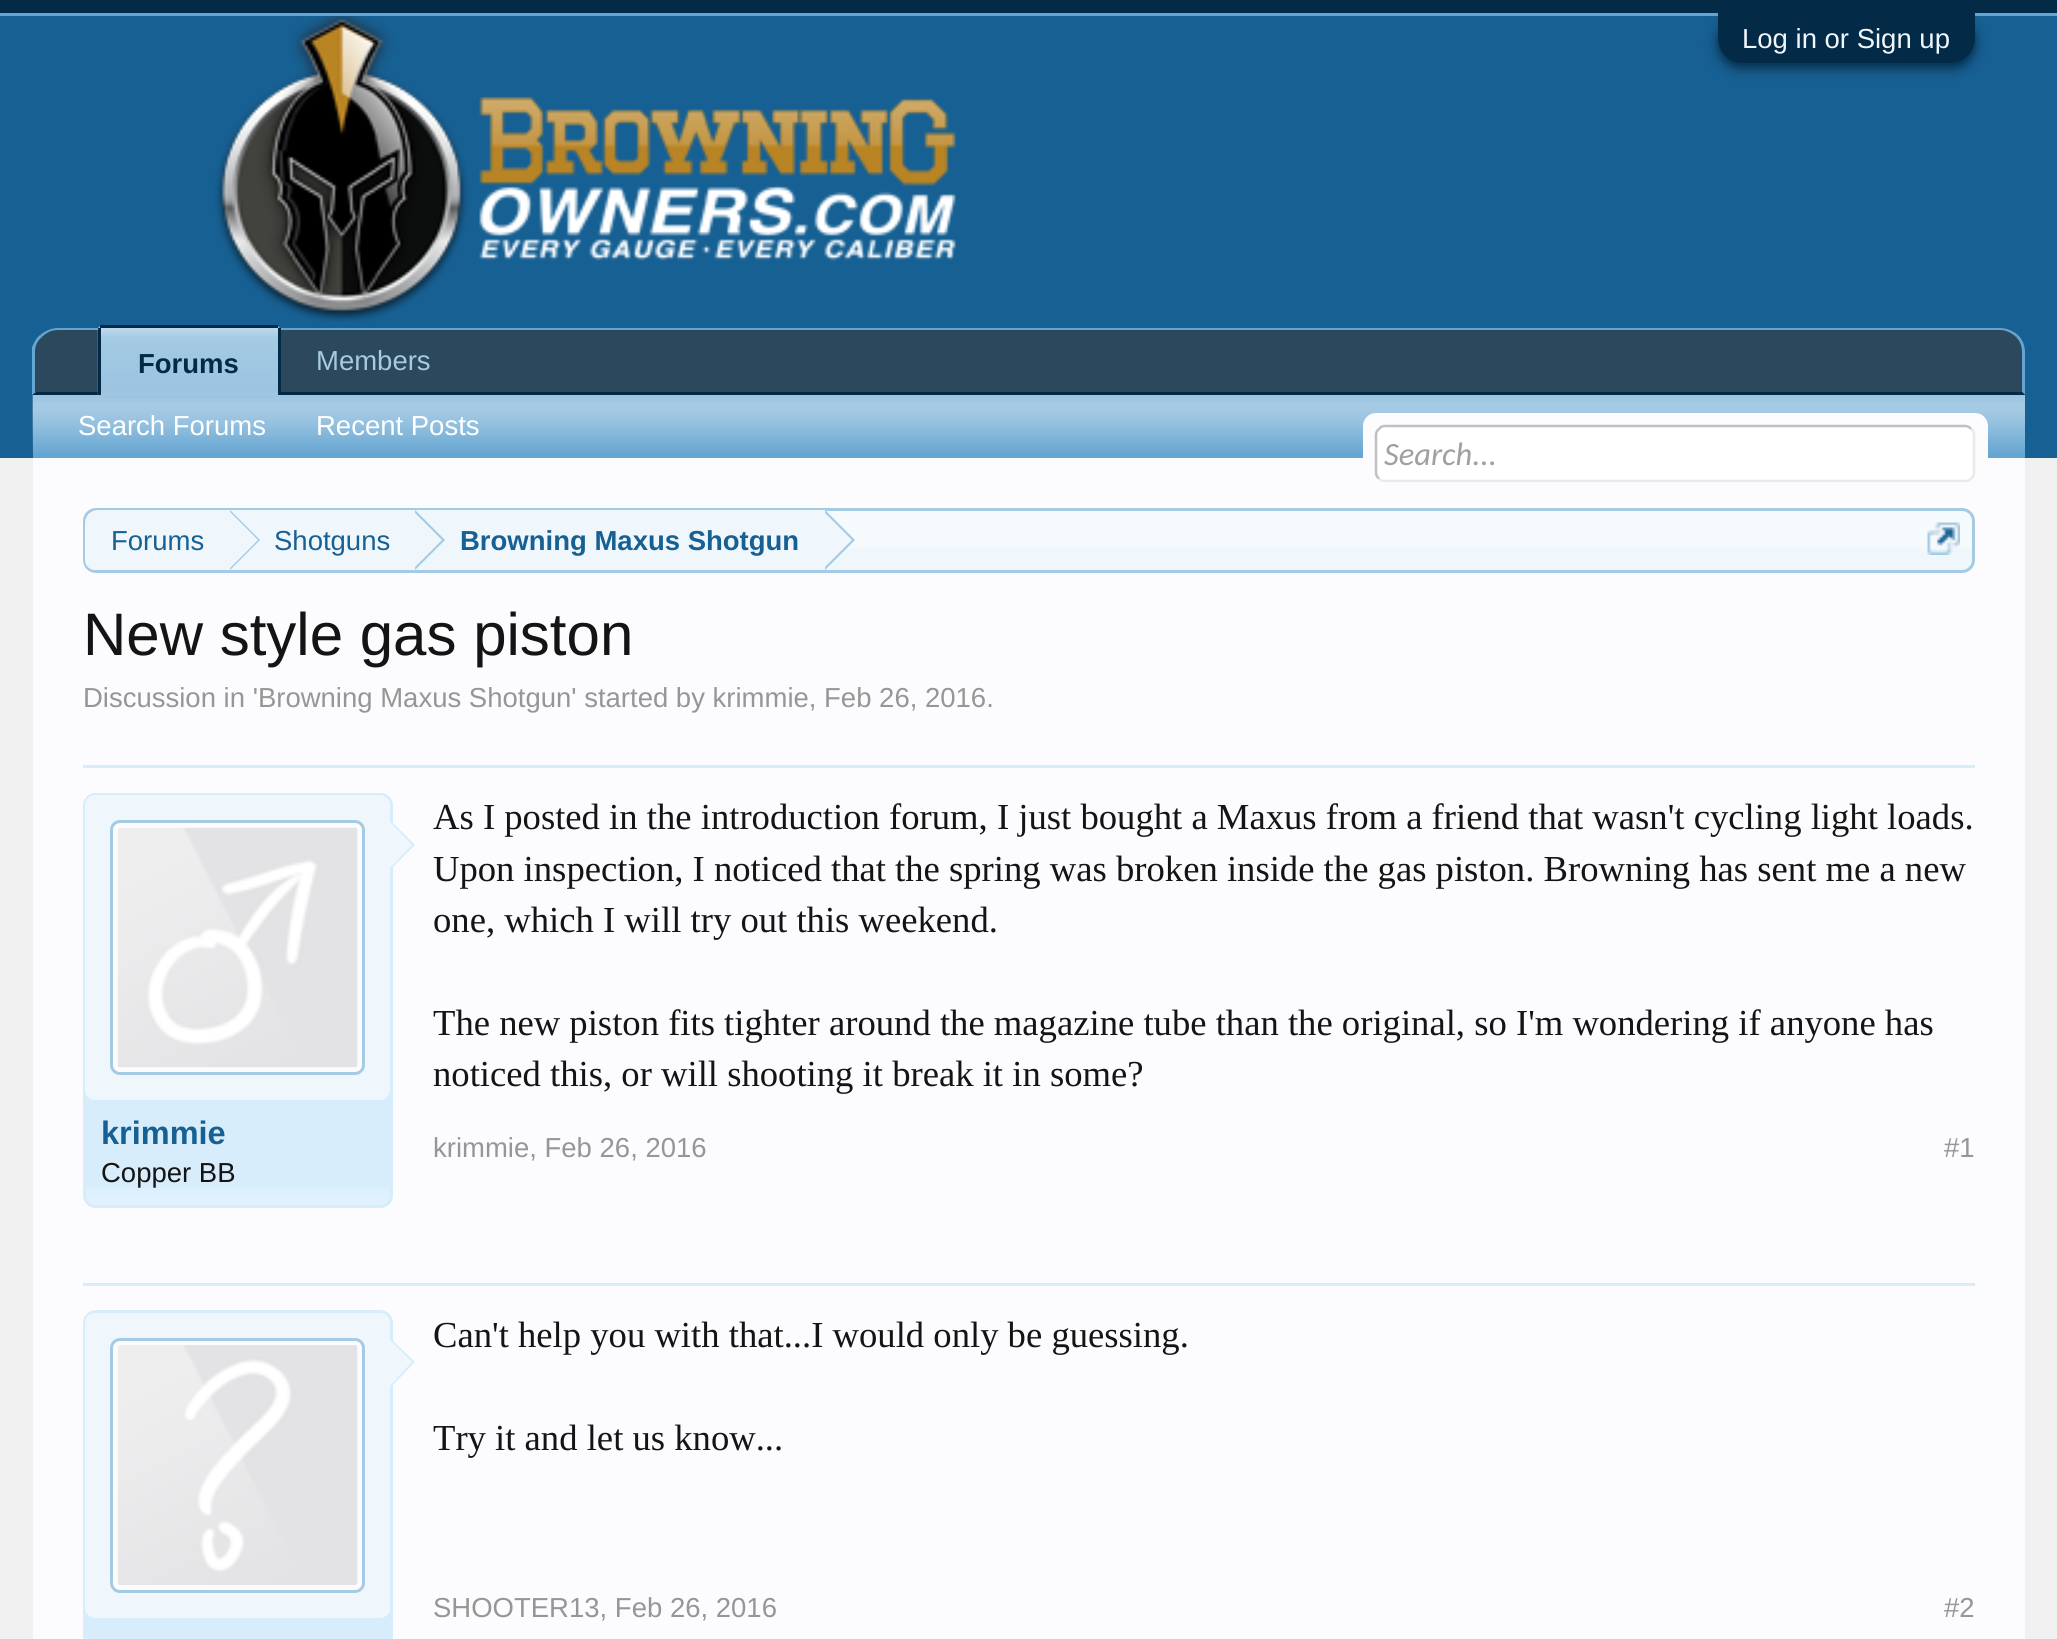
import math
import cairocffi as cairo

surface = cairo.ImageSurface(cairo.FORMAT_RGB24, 2057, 1639)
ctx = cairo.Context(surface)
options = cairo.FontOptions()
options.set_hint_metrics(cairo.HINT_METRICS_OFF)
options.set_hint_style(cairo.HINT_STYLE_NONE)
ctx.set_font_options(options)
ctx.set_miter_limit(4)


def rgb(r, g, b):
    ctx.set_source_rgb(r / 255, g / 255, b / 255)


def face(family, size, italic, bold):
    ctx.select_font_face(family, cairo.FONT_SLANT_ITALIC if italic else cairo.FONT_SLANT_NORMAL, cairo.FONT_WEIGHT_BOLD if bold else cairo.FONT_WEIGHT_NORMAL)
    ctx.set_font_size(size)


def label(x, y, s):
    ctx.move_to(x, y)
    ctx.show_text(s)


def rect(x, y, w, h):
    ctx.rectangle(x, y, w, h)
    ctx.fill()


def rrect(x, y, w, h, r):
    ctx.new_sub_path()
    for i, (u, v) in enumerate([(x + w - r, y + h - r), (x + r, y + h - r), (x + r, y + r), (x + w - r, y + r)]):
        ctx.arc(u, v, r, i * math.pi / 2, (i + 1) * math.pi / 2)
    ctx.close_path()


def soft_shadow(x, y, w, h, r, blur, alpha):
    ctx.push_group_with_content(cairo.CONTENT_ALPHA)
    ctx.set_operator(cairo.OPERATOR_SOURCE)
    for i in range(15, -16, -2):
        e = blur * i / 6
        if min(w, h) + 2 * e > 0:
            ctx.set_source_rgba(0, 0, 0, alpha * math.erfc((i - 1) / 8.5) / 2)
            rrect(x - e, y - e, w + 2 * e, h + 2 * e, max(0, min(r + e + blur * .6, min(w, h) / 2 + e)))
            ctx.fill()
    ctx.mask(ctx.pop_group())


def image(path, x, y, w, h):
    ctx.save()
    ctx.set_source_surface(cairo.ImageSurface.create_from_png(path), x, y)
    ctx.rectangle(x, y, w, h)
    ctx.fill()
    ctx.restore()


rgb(240, 240, 240)
ctx.paint()
rgb(3, 42, 70)
rect(0, 0, 2057, 13)
rgb(101, 165, 209)
rect(0, 13, 2057, 3)
rgb(23, 96, 147)
rect(0, 16, 2057, 442)
rgb(3, 42, 70)
soft_shadow(1718, 18, 257, 50, 25, 6, 1)
rgb(3, 42, 70)
ctx.new_path()
ctx.move_to(1718, 13)
ctx.line_to(1975, 13)
ctx.line_to(1975, 38)
ctx.curve_to(1975, 52, 1964, 63, 1950, 63)
ctx.line_to(1743, 63)
ctx.curve_to(1729, 63, 1718, 52, 1718, 38)
ctx.close_path()
ctx.fill()
face('Liberation Sans', 27.5, 0, 0)
rgb(240, 247, 252)
label(1742, 48, 'Log in or Sign up')
image('image0.png', 215, 16, 741, 306)
rgb(43, 72, 92)
ctx.new_path()
ctx.move_to(58, 328)
ctx.line_to(2000, 328)
ctx.curve_to(2014, 328, 2025, 339, 2025, 353)
ctx.line_to(2025, 395)
ctx.line_to(33, 395)
ctx.line_to(33, 353)
ctx.curve_to(33, 339, 44, 328, 58, 328)
ctx.close_path()
ctx.fill()
rgb(101, 165, 209)
ctx.new_path()
ctx.move_to(58, 328)
ctx.curve_to(51, 328, 45, 331, 40, 335)
ctx.line_to(42, 337)
ctx.curve_to(46, 333, 51, 330, 58, 330)
ctx.line_to(2000, 330)
ctx.curve_to(2006, 330, 2012, 333, 2016, 337)
ctx.line_to(2018, 335)
ctx.curve_to(2013, 331, 2007, 328, 2000, 328)
ctx.close_path()
ctx.fill()
ctx.new_path()
ctx.move_to(2018, 335)
ctx.curve_to(2022, 339, 2025, 345, 2025, 352)
ctx.line_to(2025, 395)
ctx.line_to(2022, 392)
ctx.line_to(2022, 352)
ctx.curve_to(2022, 346, 2020, 341, 2016, 337)
ctx.close_path()
ctx.fill()
rgb(3, 42, 70)
ctx.new_path()
ctx.move_to(2025, 395)
ctx.line_to(2022, 392)
ctx.line_to(36, 392)
ctx.line_to(32, 395)
ctx.close_path()
ctx.fill()
rgb(101, 165, 209)
ctx.new_path()
ctx.move_to(32, 395)
ctx.line_to(36, 392)
ctx.line_to(35, 392)
ctx.line_to(35, 352)
ctx.curve_to(35, 346, 37, 341, 42, 337)
ctx.line_to(40, 335)
ctx.curve_to(36, 338, 34, 343, 32, 347)
ctx.close_path()
ctx.fill()
rgb(165, 202, 228)
label(316, 370, 'Members')
rgb(101, 165, 209)
ctx.new_path()
ctx.move_to(103, 325)
ctx.line_to(275, 325)
ctx.curve_to(278, 325, 280, 327, 280, 330)
ctx.line_to(280, 395)
ctx.line_to(98, 395)
ctx.line_to(98, 330)
ctx.curve_to(98, 327, 100, 325, 103, 325)
ctx.close_path()
ctx.fill()
image('image1.png', 97, 327, 183, 68)
rgb(3, 42, 70)
rect(100, 325, 178, 3)
rect(278, 328, 3, 67)
rect(98, 328, 3, 67)
face('Liberation Sans', 27.5, 0, 1)
label(138, 373, 'Forums')
rgb(101, 165, 209)
rect(33, 395, 1992, 63)
image('image2.png', 32, 395, 1993, 59)
face('Liberation Sans', 27.5, 0, 0)
rgb(255, 255, 255)
label(78, 435, 'Search Forums')
label(316, 435, 'Recent Posts')
rgb(252, 252, 255)
rect(33, 458, 1992, 1181)
rrect(1363, 413, 625, 70, 13)
ctx.fill()
rect(1363, 425, 625, 1)
rgb(255, 255, 255)
rrect(1375, 425, 600, 58, 10)
ctx.fill()
ctx.new_path()
ctx.move_to(1971, 429)
ctx.curve_to(1973, 430.5, 1974, 432.5, 1974, 435)
ctx.line_to(1974, 472.5)
ctx.curve_to(1974, 475, 1973, 477, 1971, 478.5)
ctx.curve_to(1969.5, 480.5, 1967.5, 481, 1965, 481)
ctx.line_to(1385, 481)
ctx.curve_to(1382.5, 481, 1380.5, 480.5, 1379, 478.5)
rgb(233, 233, 233)
ctx.set_line_width(2.5)
ctx.stroke()
ctx.new_path()
ctx.move_to(1379, 478.5)
ctx.curve_to(1377, 477, 1376, 475, 1376, 472.5)
ctx.line_to(1376, 435)
ctx.curve_to(1376, 432.5, 1377, 430.5, 1379, 429)
ctx.curve_to(1380.5, 427, 1382.5, 426, 1385, 426)
ctx.line_to(1965, 426)
ctx.curve_to(1967.5, 426, 1969.5, 427, 1971, 429)
rgb(192, 192, 192)
ctx.stroke()
face('Carlito', 32.5, 1, 0)
rgb(160, 160, 160)
label(1384, 465, 'Search...')
rgb(240, 247, 252)
rrect(83, 508, 1892, 65, 13)
ctx.fill()
image('image3.png', 83, 510, 1892, 39)
rrect(84.5, 509.5, 1889, 62, 11.5)
rgb(165, 202, 228)
ctx.set_line_width(3)
ctx.stroke()
ctx.save()
rrect(85, 510, 1888, 60, 10)
ctx.clip()
rgb(240, 247, 252)
ctx.new_path()
ctx.move_to(98, 510)
ctx.line_to(230, 510)
ctx.line_to(230, 573)
ctx.line_to(98, 573)
ctx.curve_to(91, 573, 85, 567, 85, 560)
ctx.line_to(85, 523)
ctx.curve_to(85, 516, 91, 510, 98, 510)
ctx.close_path()
ctx.fill()
ctx.restore()
face('Liberation Sans', 27.5, 0, 0)
rgb(23, 96, 147)
label(111, 550, 'Forums')
rgb(240, 247, 252)
rect(230, 510, 595, 39)
rgb(165, 202, 228)
ctx.new_path()
ctx.move_to(230, 570)
ctx.line_to(230, 510)
ctx.line_to(260, 540)
ctx.close_path()
ctx.fill()
rgb(240, 247, 252)
ctx.new_path()
ctx.move_to(228, 570)
ctx.line_to(228, 510)
ctx.line_to(258, 540)
ctx.close_path()
ctx.fill()
rgb(23, 96, 147)
label(274, 550, 'Shotguns')
rgb(165, 202, 228)
ctx.new_path()
ctx.move_to(415, 570)
ctx.line_to(415, 510)
ctx.line_to(445, 540)
ctx.close_path()
ctx.fill()
rgb(240, 247, 252)
ctx.new_path()
ctx.move_to(412, 570)
ctx.line_to(412, 510)
ctx.line_to(442, 540)
ctx.close_path()
ctx.fill()
face('Liberation Sans', 27.5, 0, 1)
rgb(23, 96, 147)
label(460, 550, 'Browning Maxus Shotgun')
rgb(165, 202, 228)
ctx.new_path()
ctx.move_to(825, 570)
ctx.line_to(825, 510)
ctx.line_to(855, 540)
ctx.close_path()
ctx.fill()
rgb(240, 247, 252)
ctx.new_path()
ctx.move_to(822, 570)
ctx.line_to(822, 510)
ctx.line_to(852, 540)
ctx.close_path()
ctx.fill()
image('image4.png', 1927, 522, 33, 33)
face('Liberation Sans', 60, 0, 0)
rgb(20, 20, 20)
label(83, 655, 'New style gas piston')
face('Liberation Sans', 27.5, 0, 0)
rgb(150, 150, 150)
label(83, 707, 'Discussion in \'Browning Maxus Shotgun\' started by krimmie, Feb 26, 2016.')
rgb(215, 237, 252)
rect(83, 765, 1892, 3)
rrect(83, 793, 310, 415, 13)
ctx.fill()
image('image5.png', 83, 1188, 309, 17)
rrect(84.5, 794.5, 307, 412, 11.5)
ctx.stroke()
rgb(240, 247, 252)
rrect(85, 795, 305, 305, 10)
ctx.fill()
rgb(252, 252, 255)
rrect(111.5, 821.5, 252, 252, 8.5)
ctx.fill_preserve()
rgb(165, 202, 228)
ctx.stroke()
image('image6.png', 117, 827, 241, 241)
rgb(215, 237, 252)
ctx.new_path()
ctx.move_to(390, 870)
ctx.line_to(390, 820)
ctx.line_to(415, 845)
ctx.close_path()
ctx.fill()
rgb(240, 247, 252)
ctx.new_path()
ctx.move_to(388, 870)
ctx.line_to(388, 820)
ctx.line_to(412, 845)
ctx.close_path()
ctx.fill()
face('Liberation Sans', 32.5, 0, 1)
rgb(23, 96, 147)
label(101, 1144, 'krimmie')
face('Liberation Sans', 27.5, 0, 0)
rgb(20, 20, 20)
label(101, 1182, 'Copper BB')
face('Liberation Serif', 36.65, 0, 0)
label(433, 829, 'As I posted in the introduction forum, I just bought a Maxus from a friend that wasn\'t cycling light loads.')
label(433, 881, 'Upon inspection, I noticed that the spring was broken inside the gas piston. Browning has sent me a new')
label(433, 932, 'one, which I will try out this weekend.')
label(433, 1035, 'The new piston fits tighter around the magazine tube than the original, so I\'m wondering if anyone has')
label(433, 1086, 'noticed this, or will shooting it break it in some?')
face('Liberation Sans', 27.5, 0, 0)
rgb(150, 150, 150)
label(433, 1157, 'krimmie, Feb 26, 2016')
label(1944, 1157, '#1')
rgb(215, 237, 252)
rect(83, 1283, 1892, 3)
rrect(84.5, 1311.5, 307, 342, 11.5)
ctx.fill_preserve()
ctx.stroke()
rgb(240, 247, 252)
rrect(85, 1313, 305, 305, 10)
ctx.fill()
rgb(252, 252, 255)
rrect(111.5, 1339.5, 252, 252, 8.5)
ctx.fill_preserve()
rgb(165, 202, 228)
ctx.stroke()
image('image7.png', 117, 1345, 241, 240)
rgb(215, 237, 252)
ctx.new_path()
ctx.move_to(390, 1388)
ctx.line_to(390, 1338)
ctx.line_to(415, 1362)
ctx.close_path()
ctx.fill()
rgb(240, 247, 252)
ctx.new_path()
ctx.move_to(388, 1388)
ctx.line_to(388, 1338)
ctx.line_to(412, 1362)
ctx.close_path()
ctx.fill()
face('Liberation Serif', 36.65, 0, 0)
rgb(20, 20, 20)
label(433, 1347, 'Can\'t help you with that...I would only be guessing.')
label(433, 1450, 'Try it and let us know...')
face('Liberation Sans', 27.5, 0, 0)
rgb(150, 150, 150)
label(433, 1617, 'SHOOTER13, Feb 26, 2016')
label(1944, 1617, '#2')
surface.write_to_png('render.png')
